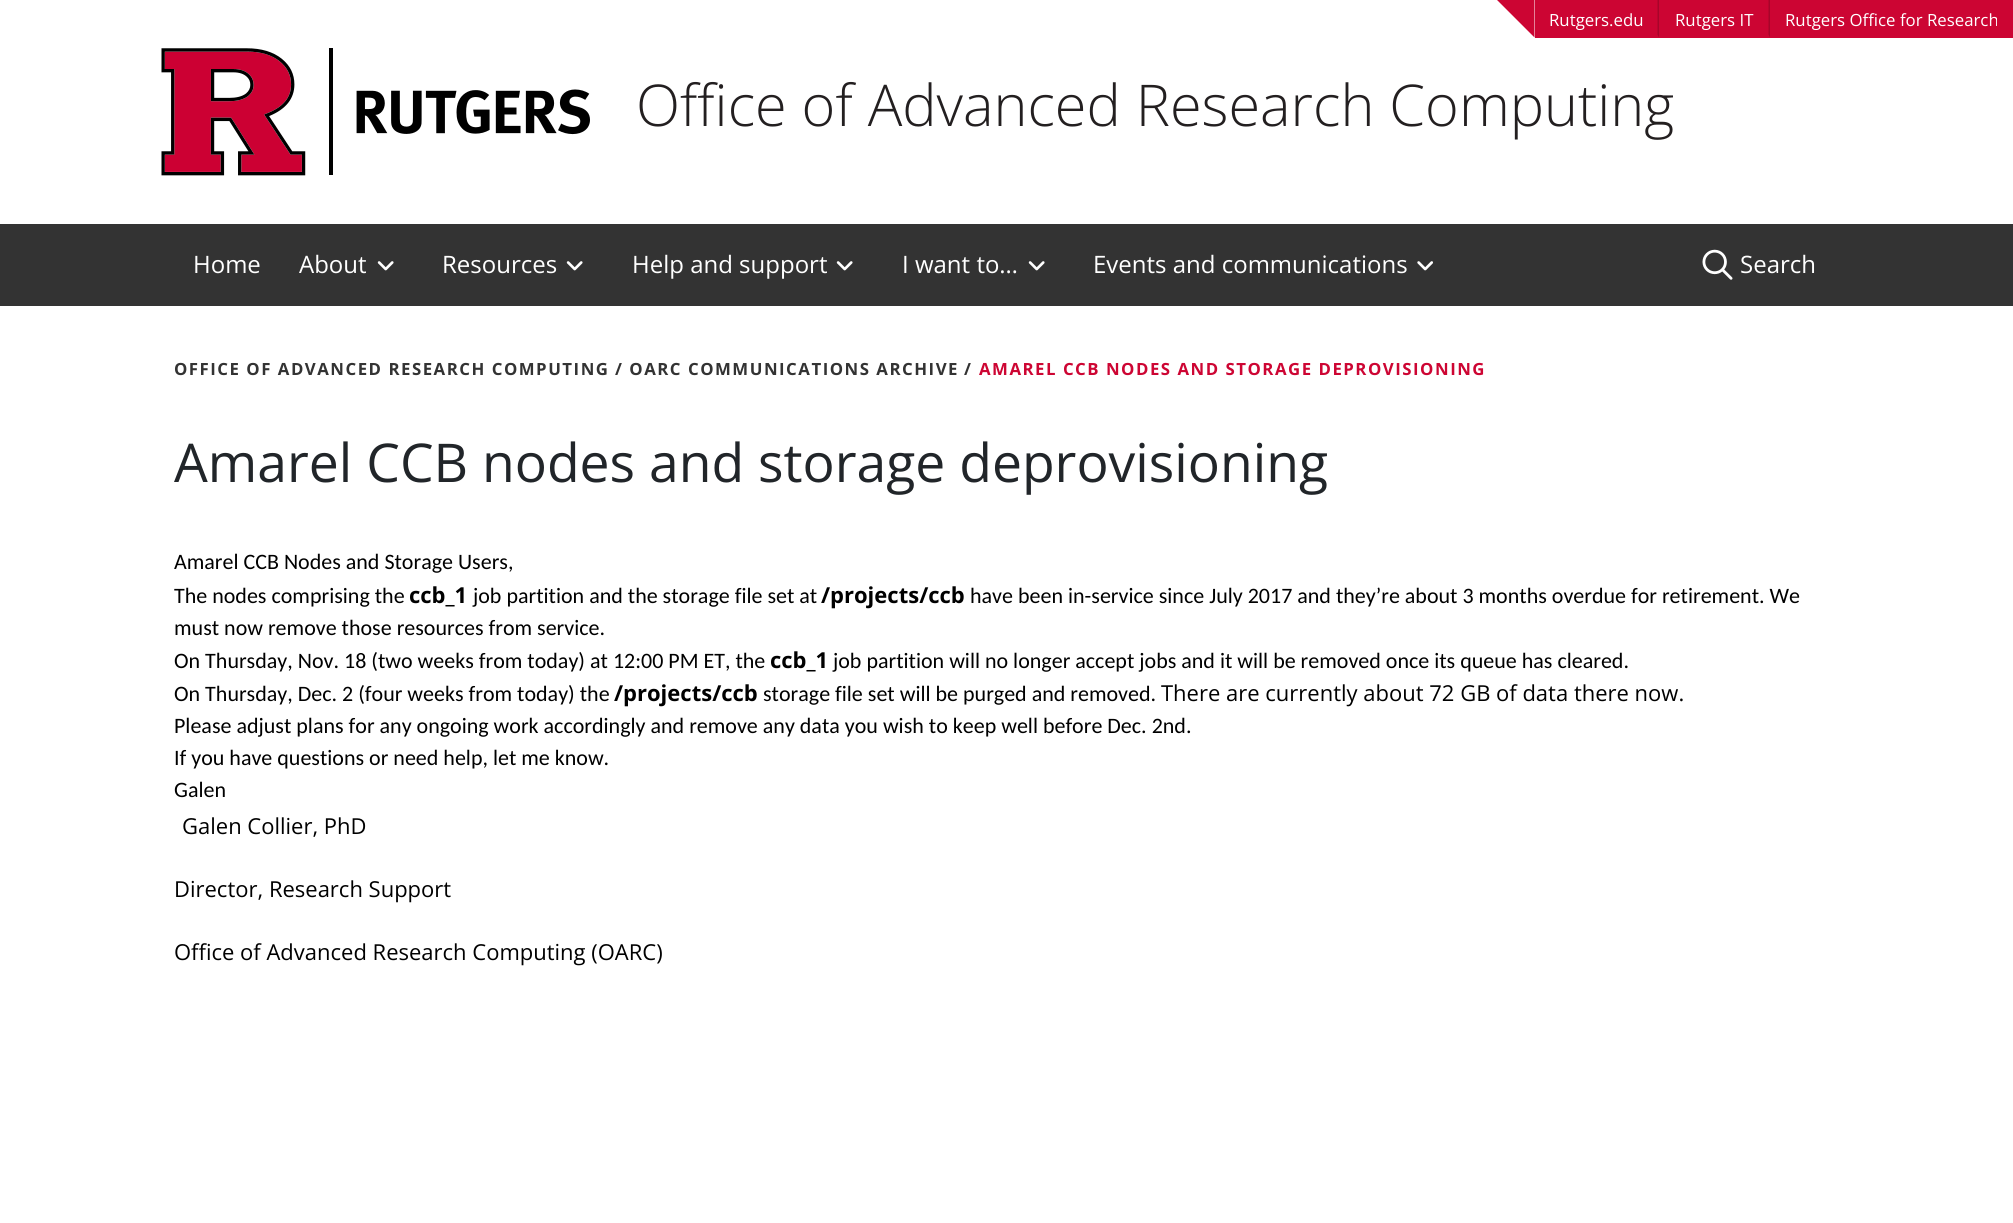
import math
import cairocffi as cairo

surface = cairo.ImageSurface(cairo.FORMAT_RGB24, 2013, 1223)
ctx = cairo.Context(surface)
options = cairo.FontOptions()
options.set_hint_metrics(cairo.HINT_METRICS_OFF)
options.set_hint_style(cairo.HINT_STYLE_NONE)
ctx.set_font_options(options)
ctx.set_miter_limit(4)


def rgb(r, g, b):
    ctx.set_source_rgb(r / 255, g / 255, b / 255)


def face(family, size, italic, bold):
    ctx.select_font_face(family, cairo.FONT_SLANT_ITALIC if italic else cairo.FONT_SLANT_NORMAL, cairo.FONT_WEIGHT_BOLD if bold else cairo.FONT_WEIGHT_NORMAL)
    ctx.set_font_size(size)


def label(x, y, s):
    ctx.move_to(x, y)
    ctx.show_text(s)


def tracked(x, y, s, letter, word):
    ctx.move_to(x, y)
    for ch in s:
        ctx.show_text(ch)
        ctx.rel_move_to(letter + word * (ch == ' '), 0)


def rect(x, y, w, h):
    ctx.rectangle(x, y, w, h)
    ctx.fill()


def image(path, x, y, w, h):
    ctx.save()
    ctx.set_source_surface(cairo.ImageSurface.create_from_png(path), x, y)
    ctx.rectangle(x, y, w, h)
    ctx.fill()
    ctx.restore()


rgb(255, 255, 255)
ctx.paint()
rgb(204, 5, 51)
ctx.new_path()
ctx.move_to(1497, 0)
ctx.line_to(1534.5, 0)
ctx.line_to(1534.5, 37.5)
ctx.close_path()
ctx.fill()
rect(1535, 0, 478, 38)
rgb(167, 5, 42)
ctx.new_path()
ctx.move_to(1659, 0)
ctx.line_to(1659, 37.5)
ctx.line_to(1657.5, 34.5)
ctx.line_to(1657.5, 0)
ctx.close_path()
ctx.fill()
face('Open Sans', 16.8, 0, 0)
rgb(255, 255, 255)
label(1549, 26, 'Rutgers.edu')
rgb(167, 5, 42)
ctx.new_path()
ctx.move_to(1770, 0)
ctx.line_to(1770, 37.5)
ctx.line_to(1768.5, 34.5)
ctx.line_to(1768.5, 0)
ctx.close_path()
ctx.fill()
rgb(255, 255, 255)
label(1675, 26, 'Rutgers IT')
label(1785, 26, 'Rutgers Office for Research')
image('image0.png', 161, 48, 429, 128)
face('Open Sans Light', 57.6, 0, 0)
rgb(35, 31, 32)
label(636, 126, 'Office of Advanced Research Computing')
rgb(51, 51, 51)
rect(0, 224, 2013, 82)
face('Open Sans', 24, 0, 0)
rgb(255, 255, 255)
label(193, 273, 'Home')
label(299, 273, 'About')
image('image1.png', 377, 261, 17, 10)
label(442, 273, 'Resources')
image('image1.png', 566, 261, 17, 10)
label(632, 273, 'Help and support')
image('image1.png', 836, 261, 17, 10)
label(902, 273, 'I want to…')
image('image1.png', 1028, 261, 17, 10)
label(1093, 273, 'Events and communications')
image('image2.png', 1417, 261, 16, 10)
image('image3.png', 1702, 249, 31, 31)
label(1740, 273, 'Search')
face('Open Sans', 16.8, 0, 1)
rgb(51, 51, 51)
tracked(174, 375, 'OFFICE OF ADVANCED RESEARCH COMPUTING', 1.5, 0)
tracked(615, 375, '/ OARC COMMUNICATIONS ARCHIVE', 1.5, 0)
tracked(964, 375, '/', 1.5, 0)
rgb(205, 5, 51)
tracked(979, 375, 'AMAREL CCB NODES AND STORAGE DEPROVISIONING', 1.5, 0)
face('Open Sans', 53.45, 0, 0)
rgb(33, 37, 41)
label(174, 482, 'Amarel CCB nodes and storage deprovisioning')
face('Carlito', 22, 0, 0)
rgb(0, 0, 0)
label(174, 569, 'Amarel CCB Nodes and Storage Users,')
label(174, 603, 'The nodes comprising the')
face('Open Sans', 22, 0, 1)
label(409, 603, 'ccb_1')
face('Carlito', 22, 0, 0)
label(473, 603, 'job partition and the storage file set at')
face('Open Sans', 22, 0, 1)
label(821, 603, '/projects/ccb')
face('Carlito', 22, 0, 0)
label(970, 603, 'have been in-service since July 2017 and they’re about 3 months overdue for retirement. We')
label(174, 635, 'must now remove those resources from service.')
label(174, 668, 'On Thursday, Nov. 18 (two weeks from today) at 12:00 PM ET, the')
face('Open Sans', 22, 0, 1)
label(770, 668, 'ccb_1')
face('Carlito', 22, 0, 0)
label(833, 668, 'job partition will no longer accept jobs and it will be removed once its queue has cleared.')
label(174, 701, 'On Thursday, Dec. 2 (four weeks from today) the')
face('Open Sans', 22, 0, 1)
label(614, 701, '/projects/ccb')
face('Carlito', 22, 0, 0)
label(763, 701, 'storage file set will be purged and removed.')
face('Open Sans', 22, 0, 0)
label(1161, 701, 'There are currently about 72 GB of data there now.')
face('Carlito', 22, 0, 0)
label(174, 733, 'Please adjust plans for any ongoing work accordingly and remove any data you wish to keep well before Dec. 2nd.')
label(174, 765, 'If you have questions or need help, let me know.')
label(174, 797, 'Galen')
face('Open Sans', 22, 0, 0)
label(182, 834, 'Galen Collier, PhD')
label(174, 897, 'Director, Research Support')
label(174, 960, 'Office of Advanced Research Computing (OARC)')
surface.write_to_png('render.png')
